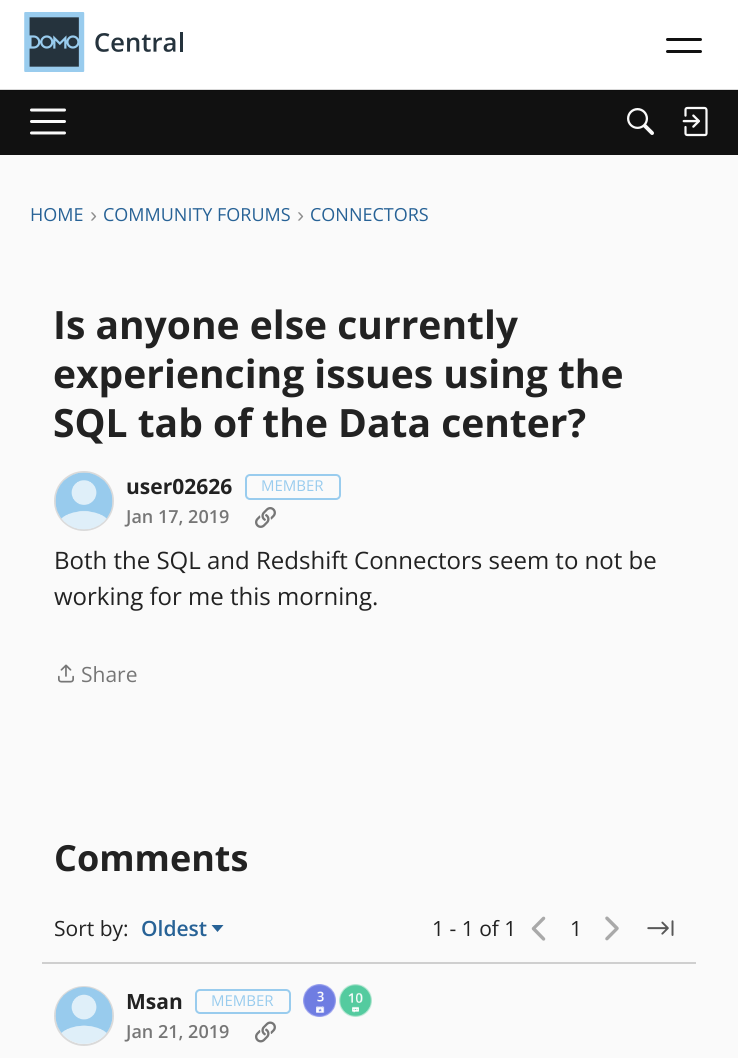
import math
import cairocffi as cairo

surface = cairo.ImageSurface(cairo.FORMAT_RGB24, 738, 1058)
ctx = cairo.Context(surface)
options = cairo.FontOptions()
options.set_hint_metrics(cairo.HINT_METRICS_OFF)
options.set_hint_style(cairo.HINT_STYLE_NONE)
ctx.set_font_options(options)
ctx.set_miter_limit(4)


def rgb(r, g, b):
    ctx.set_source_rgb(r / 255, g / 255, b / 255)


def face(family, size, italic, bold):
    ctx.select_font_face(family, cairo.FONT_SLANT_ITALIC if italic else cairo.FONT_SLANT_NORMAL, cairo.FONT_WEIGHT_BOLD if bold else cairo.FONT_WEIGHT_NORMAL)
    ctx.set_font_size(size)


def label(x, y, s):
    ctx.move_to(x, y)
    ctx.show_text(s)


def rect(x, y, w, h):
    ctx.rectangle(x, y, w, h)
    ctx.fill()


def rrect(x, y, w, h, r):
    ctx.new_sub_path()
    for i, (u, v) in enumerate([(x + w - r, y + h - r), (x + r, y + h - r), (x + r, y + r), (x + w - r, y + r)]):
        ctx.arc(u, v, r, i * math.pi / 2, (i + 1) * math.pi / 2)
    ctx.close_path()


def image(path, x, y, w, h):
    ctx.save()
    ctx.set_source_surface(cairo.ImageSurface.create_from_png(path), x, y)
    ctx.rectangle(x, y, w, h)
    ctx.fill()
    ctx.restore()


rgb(250, 250, 250)
ctx.paint()
rgb(255, 255, 255)
rect(0, 0, 738, 89)
rgb(217, 217, 217)
rect(0, 89, 738, 1)
image('image0.png', 24, 12, 159, 60)
rgb(17, 17, 17)
rrect(666, 38, 36, 3, 1.5)
ctx.fill()
rrect(666, 50, 36, 3, 1.5)
ctx.fill()
rect(0, 91, 738, 64)
rgb(14, 14, 14)
rect(0, 90, 738, 1)
image('image1.png', 30, 108, 36, 27)
image('image2.png', 627, 108, 27, 27)
image('image3.png', 682, 106, 26, 31)
face('Open Sans', 18, 0, 0)
rgb(39, 98, 150)
label(30, 221, 'HOME')
face('Liberation Sans', 21, 0, 0)
rgb(142, 142, 142)
label(90, 222, '›')
face('Open Sans', 18, 0, 0)
rgb(39, 98, 150)
label(103, 221, 'COMMUNITY FORUMS')
face('Liberation Sans', 21, 0, 0)
rgb(142, 142, 142)
label(297, 222, '›')
face('Open Sans', 18, 0, 0)
rgb(39, 98, 150)
label(310, 221, 'CONNECTORS')
face('Open Sans', 39, 0, 1)
rgb(34, 34, 34)
label(53, 339, 'Is anyone else currently')
label(53, 388, 'experiencing issues using the')
label(53, 437, 'SQL tab of the Data center?')
ctx.new_path()
ctx.arc(84, 501, 29, 0, 2 * math.pi)
rgb(218, 218, 218)
ctx.stroke()
image('image4.png', 55, 472, 58, 58)
face('Open Sans', 21, 0, 1)
rgb(34, 34, 34)
label(126, 494, 'user02626')
rrect(246, 475, 94, 24, 4)
rgb(153, 204, 238)
ctx.stroke()
face('Open Sans', 15, 0, 0)
label(261, 491, 'MEMBER')
face('Open Sans SemiBold', 18, 0, 0)
rgb(118, 118, 118)
label(126, 523, 'Jan 17, 2019')
image('image5.png', 255, 507, 21, 21)
face('Open Sans', 24, 0, 0)
rgb(34, 34, 34)
label(54, 569, 'Both the SQL and Redshift Connectors seem to not be')
label(54, 605, 'working for me this morning.')
image('image6.png', 58, 664, 16, 19)
face('Open Sans', 21, 0, 0)
rgb(118, 118, 118)
label(81, 682, 'Share')
face('Open Sans', 36, 0, 1)
rgb(34, 34, 34)
label(54, 871, 'Comments')
face('Open Sans', 21, 0, 0)
label(54, 936, 'Sort by:')
face('Open Sans SemiBold', 21, 0, 0)
rgb(39, 98, 150)
label(141, 936, 'Oldest')
ctx.new_path()
ctx.move_to(211.5, 925)
ctx.line_to(223.5, 925)
ctx.line_to(217.5, 932)
ctx.close_path()
ctx.fill()
face('Open Sans', 21, 0, 0)
rgb(34, 34, 34)
label(432, 936, '1 - 1 of 1')
image('image7.png', 531, 916, 15, 25)
label(570, 936, '1')
image('image8.png', 605, 916, 14, 25)
image('image9.png', 647, 920, 27, 16)
rgb(207, 207, 207)
rect(42, 962, 654, 2)
ctx.arc(84, 1016, 29, 0, 2 * math.pi)
rgb(218, 218, 218)
ctx.stroke()
image('image10.png', 55, 987, 58, 57)
face('Open Sans', 21, 0, 1)
rgb(34, 34, 34)
label(126, 1009, 'Msan')
rrect(196, 990, 94, 23, 4)
rgb(153, 204, 238)
ctx.stroke()
face('Open Sans', 15, 0, 0)
label(211, 1006, 'MEMBER')
image('image11.png', 303, 984, 33, 33)
image('image12.png', 339, 984, 33, 33)
face('Open Sans SemiBold', 18, 0, 0)
rgb(118, 118, 118)
label(126, 1038, 'Jan 21, 2019')
image('image13.png', 255, 1021, 21, 22)
surface.write_to_png('render.png')
